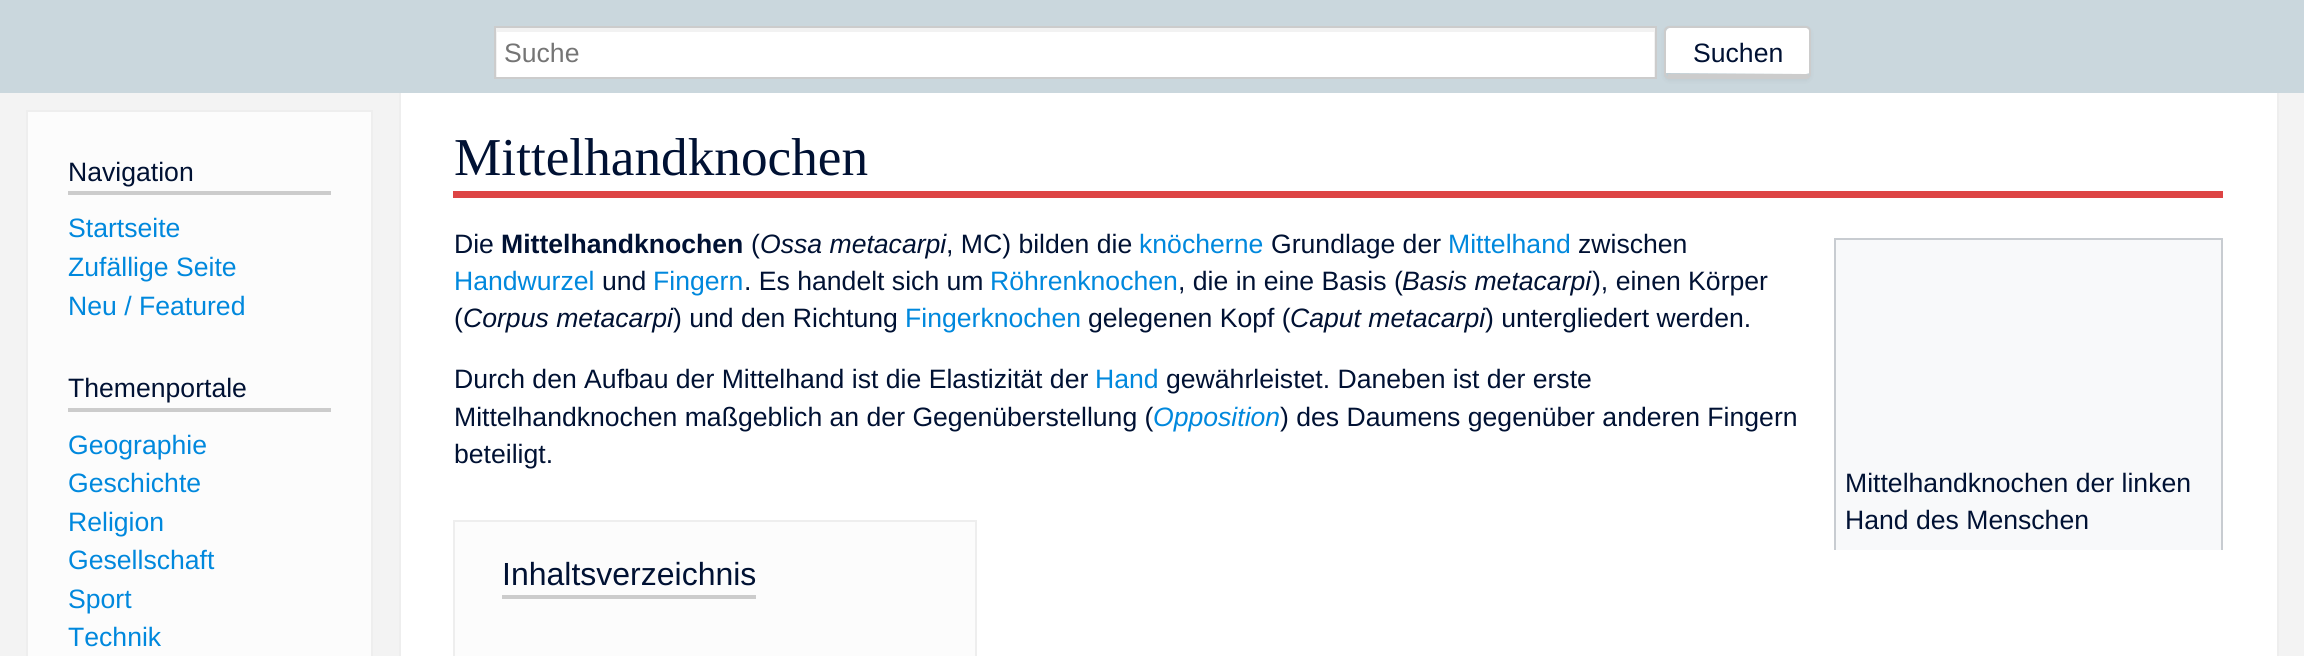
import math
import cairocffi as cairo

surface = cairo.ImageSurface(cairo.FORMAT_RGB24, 2304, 656)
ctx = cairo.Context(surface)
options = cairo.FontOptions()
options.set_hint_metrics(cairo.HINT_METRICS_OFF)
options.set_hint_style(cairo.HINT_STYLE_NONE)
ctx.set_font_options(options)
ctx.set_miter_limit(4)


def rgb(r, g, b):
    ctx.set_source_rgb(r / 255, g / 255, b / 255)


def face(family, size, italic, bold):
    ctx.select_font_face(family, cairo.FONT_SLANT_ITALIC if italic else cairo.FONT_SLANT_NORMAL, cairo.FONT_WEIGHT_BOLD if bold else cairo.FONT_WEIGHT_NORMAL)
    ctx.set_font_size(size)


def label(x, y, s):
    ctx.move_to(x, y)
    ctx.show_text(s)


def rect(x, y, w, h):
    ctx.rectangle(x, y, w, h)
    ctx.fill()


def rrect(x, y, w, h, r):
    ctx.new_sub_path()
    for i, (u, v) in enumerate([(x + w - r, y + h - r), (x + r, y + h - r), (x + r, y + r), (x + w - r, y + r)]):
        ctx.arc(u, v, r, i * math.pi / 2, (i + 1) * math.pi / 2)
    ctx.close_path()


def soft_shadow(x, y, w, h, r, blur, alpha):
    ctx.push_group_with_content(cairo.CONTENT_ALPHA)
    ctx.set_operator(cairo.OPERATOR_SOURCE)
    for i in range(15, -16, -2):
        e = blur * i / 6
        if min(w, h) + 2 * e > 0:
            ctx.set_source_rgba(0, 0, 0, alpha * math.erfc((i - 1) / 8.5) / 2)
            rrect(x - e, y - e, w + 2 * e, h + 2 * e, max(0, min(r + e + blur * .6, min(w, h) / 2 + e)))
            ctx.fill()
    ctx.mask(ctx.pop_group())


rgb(243, 243, 243)
ctx.paint()
rgb(202, 215, 221)
rect(0, 0, 2304, 93)
rgb(255, 255, 255)
rect(497, 32, 1157, 45)
ctx.save()
ctx.rectangle(495, 28, 1161, 49)
ctx.clip()
rgb(242, 242, 242)
ctx.set_fill_rule(cairo.FILL_RULE_EVEN_ODD)
ctx.new_path()
ctx.move_to(322, -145)
ctx.line_to(1829, -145)
ctx.line_to(1829, 250)
ctx.line_to(322, 250)
ctx.close_path()
ctx.move_to(497, 32)
ctx.line_to(1654, 32)
ctx.line_to(1654, 77)
ctx.line_to(497, 77)
ctx.close_path()
ctx.fill()
ctx.restore()
ctx.rectangle(495, 27, 1161, 51)
rgb(204, 204, 204)
ctx.stroke()
face('Liberation Sans', 26.6, 0, 0)
rgb(117, 117, 117)
label(504, 62, 'Suche')
rgb(0, 0, 0)
soft_shadow(1664, 28, 147, 53, 5, 2, 0.05)
rgb(255, 255, 255)
ctx.new_path()
ctx.move_to(1670, 28)
ctx.line_to(1806, 28)
ctx.curve_to(1808, 28, 1810, 30, 1810, 32)
ctx.line_to(1810, 73)
ctx.line_to(1806, 74)
ctx.line_to(1666, 73)
ctx.line_to(1666, 32)
ctx.curve_to(1666, 30, 1668, 28, 1670, 28)
ctx.close_path()
ctx.fill()
rrect(1665, 27, 145, 51, 4)
rgb(204, 204, 204)
ctx.stroke()
rect(1668, 74, 140, 3)
rgb(0, 17, 51)
label(1693, 62, 'Suchen')
rgb(252, 252, 252)
rect(28, 112, 343, 544)
rgb(238, 238, 238)
rect(26, 110, 347, 2)
rect(371, 110, 2, 546)
rect(26, 110, 2, 546)
rgb(204, 204, 204)
rect(68, 191, 263, 4)
rgb(0, 17, 51)
label(68, 181, 'Navigation')
rgb(0, 136, 221)
label(68, 237, 'Startseite')
label(68, 276, 'Zufällige Seite')
label(68, 315, 'Neu / Featured')
rgb(204, 204, 204)
rect(68, 408, 263, 4)
rgb(0, 17, 51)
label(68, 397, 'Themenportale')
rgb(0, 136, 221)
label(68, 454, 'Geographie')
label(68, 492, 'Geschichte')
label(68, 531, 'Religion')
label(68, 569, 'Gesellschaft')
label(68, 608, 'Sport')
label(68, 646, 'Technik')
rgb(255, 255, 255)
rect(401, 93, 1876, 563)
rgb(238, 238, 238)
rect(2277, 93, 2, 563)
rect(399, 93, 2, 563)
rgb(221, 68, 68)
rect(453, 191, 1770, 7)
face('Liberation Serif', 53.25, 0, 0)
rgb(0, 17, 51)
label(454, 175, 'Mittelhandknochen')
face('Liberation Sans', 26.6, 0, 0)
label(454, 253, 'Die')
face('Liberation Sans', 26.6, 0, 1)
label(501, 253, 'Mittelhandknochen')
face('Liberation Sans', 26.6, 0, 0)
label(751, 253, '(')
face('Liberation Sans', 26.6, 1, 0)
label(760, 253, 'Ossa metacarpi')
face('Liberation Sans', 26.6, 0, 0)
label(946, 253, ', MC) bilden die')
rgb(0, 136, 221)
label(1139, 253, 'knöcherne')
rgb(0, 17, 51)
label(1271, 253, 'Grundlage der')
rgb(0, 136, 221)
label(1448, 253, 'Mittelhand')
rgb(0, 17, 51)
label(1578, 253, 'zwischen')
rgb(0, 136, 221)
label(454, 290, 'Handwurzel')
rgb(0, 17, 51)
label(602, 290, 'und')
rgb(0, 136, 221)
label(653, 290, 'Fingern')
rgb(0, 17, 51)
label(744, 290, '. Es handelt sich um')
rgb(0, 136, 221)
label(990, 290, 'Röhrenknochen')
rgb(0, 17, 51)
label(1178, 290, ', die in eine Basis (')
face('Liberation Sans', 26.6, 1, 0)
label(1402, 290, 'Basis metacarpi')
face('Liberation Sans', 26.6, 0, 0)
label(1592, 290, '), einen Körper')
label(454, 327, '(')
face('Liberation Sans', 26.6, 1, 0)
label(463, 327, 'Corpus metacarpi')
face('Liberation Sans', 26.6, 0, 0)
label(673, 327, ') und den Richtung')
rgb(0, 136, 221)
label(905, 327, 'Fingerknochen')
rgb(0, 17, 51)
label(1088, 327, 'gelegenen Kopf (')
face('Liberation Sans', 26.6, 1, 0)
label(1290, 327, 'Caput metacarpi')
face('Liberation Sans', 26.6, 0, 0)
label(1485, 327, ') untergliedert werden.')
label(454, 388, 'Durch den Aufbau der Mittelhand ist die Elastizität der')
rgb(0, 136, 221)
label(1095, 388, 'Hand')
rgb(0, 17, 51)
label(1166, 388, 'gewährleistet. Daneben ist der erste')
label(454, 426, 'Mittelhandknochen maßgeblich an der Gegenüberstellung (')
face('Liberation Sans', 26.6, 1, 0)
rgb(0, 136, 221)
label(1153, 426, 'Opposition')
face('Liberation Sans', 26.6, 0, 0)
rgb(0, 17, 51)
label(1280, 426, ') des Daumens gegenüber anderen Fingern')
label(454, 463, 'beteiligt.')
rgb(248, 249, 250)
rect(1836, 240, 385, 310)
rgb(200, 204, 209)
rect(1834, 238, 389, 2)
rect(2221, 238, 2, 312)
rect(1834, 238, 2, 312)
rgb(0, 17, 51)
label(1845, 492, 'Mittelhandknochen der linken')
label(1845, 529, 'Hand des Menschen')
rgb(252, 252, 252)
rect(455, 522, 520, 134)
rgb(238, 238, 238)
rect(453, 520, 524, 2)
rect(975, 520, 2, 136)
rect(453, 520, 2, 136)
rgb(204, 204, 204)
rect(502, 595, 254, 4)
face('Liberation Sans', 32, 0, 0)
rgb(0, 17, 51)
label(502, 585, 'Inhaltsverzeichnis')
surface.write_to_png('render.png')
